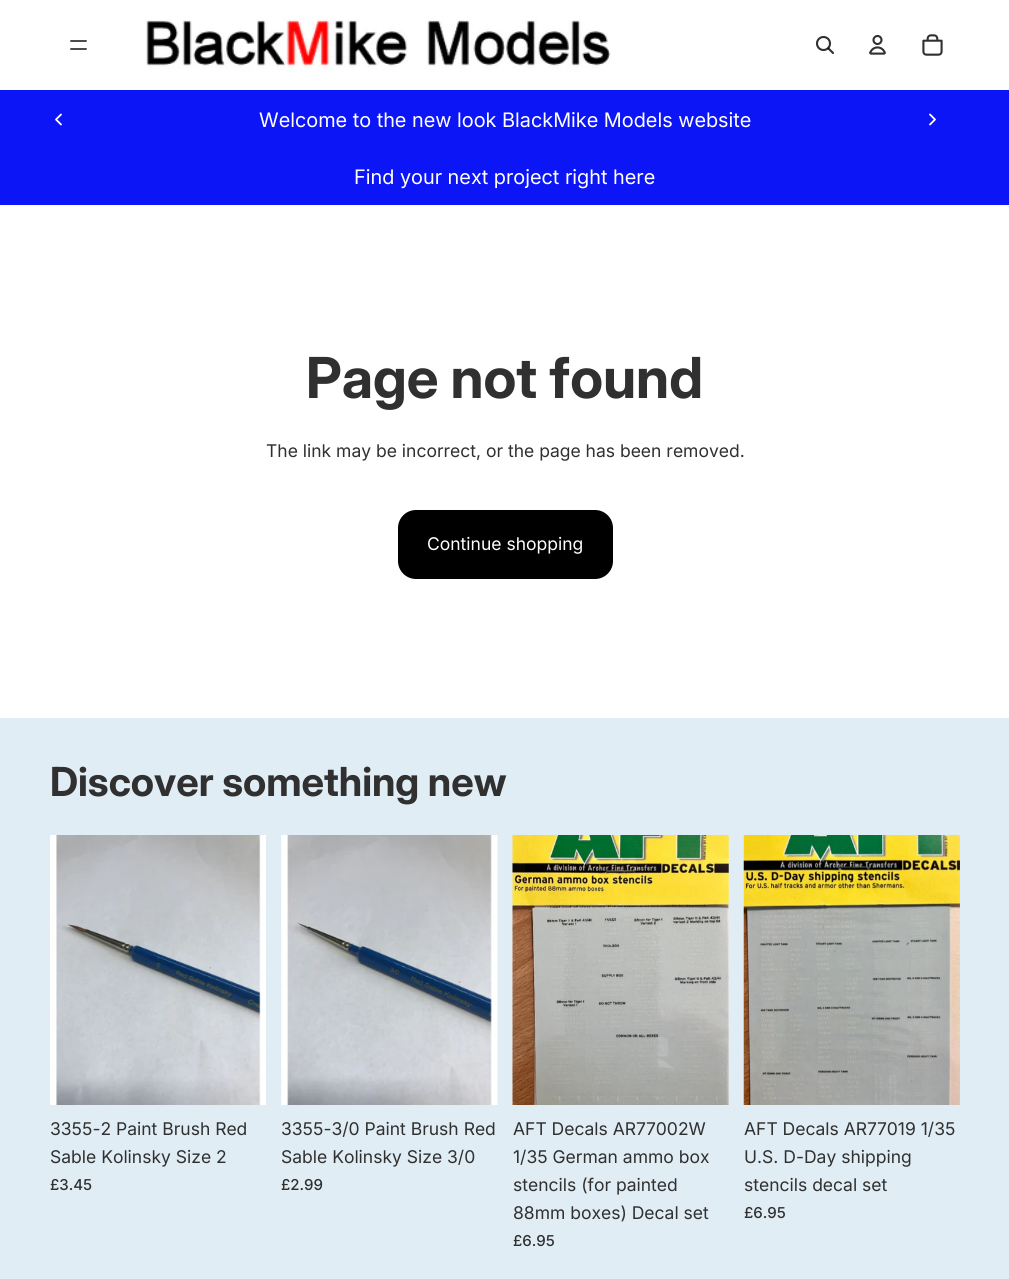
import math
import cairocffi as cairo

surface = cairo.ImageSurface(cairo.FORMAT_RGB24, 1009, 1279)
ctx = cairo.Context(surface)
options = cairo.FontOptions()
options.set_hint_metrics(cairo.HINT_METRICS_OFF)
options.set_hint_style(cairo.HINT_STYLE_NONE)
ctx.set_font_options(options)
ctx.set_miter_limit(4)


def rgb(r, g, b):
    ctx.set_source_rgb(r / 255, g / 255, b / 255)


def face(family, size, italic, bold):
    ctx.select_font_face(family, cairo.FONT_SLANT_ITALIC if italic else cairo.FONT_SLANT_NORMAL, cairo.FONT_WEIGHT_BOLD if bold else cairo.FONT_WEIGHT_NORMAL)
    ctx.set_font_size(size)


def label(x, y, s):
    ctx.move_to(x, y)
    ctx.show_text(s)


def rect(x, y, w, h):
    ctx.rectangle(x, y, w, h)
    ctx.fill()


def rrect(x, y, w, h, r):
    ctx.new_sub_path()
    for i, (u, v) in enumerate([(x + w - r, y + h - r), (x + r, y + h - r), (x + r, y + r), (x + w - r, y + r)]):
        ctx.arc(u, v, r, i * math.pi / 2, (i + 1) * math.pi / 2)
    ctx.close_path()


def image(path, x, y, w, h):
    ctx.save()
    ctx.set_source_surface(cairo.ImageSurface.create_from_png(path), x, y)
    ctx.rectangle(x, y, w, h)
    ctx.fill()
    ctx.restore()


rgb(255, 255, 255)
ctx.paint()
ctx.new_path()
ctx.move_to(71, 41)
ctx.line_to(86, 41)
ctx.move_to(71, 49)
ctx.line_to(86, 49)
rgb(48, 48, 48)
ctx.set_line_width(1.8)
ctx.set_line_cap(cairo.LINE_CAP_ROUND)
ctx.stroke()
image('image0.png', 146, 16, 465, 57)
ctx.arc(823.5, 43.5, 6.5, 0, 2 * math.pi)
ctx.set_line_width(2.1)
ctx.set_line_cap(cairo.LINE_CAP_BUTT)
ctx.stroke()
ctx.new_path()
ctx.move_to(828.5, 48.5)
ctx.line_to(833, 53)
ctx.set_source_rgba(0, 0, 0, 0.81)
ctx.set_line_cap(cairo.LINE_CAP_ROUND)
ctx.set_line_join(cairo.LINE_JOIN_ROUND)
ctx.stroke()
image('image1.png', 869, 35, 17, 20)
image('image2.png', 922, 34, 21, 22)
rgb(11, 21, 245)
rect(0, 90, 1009, 115)
face('Inter', 20, 0, 0)
rgb(255, 255, 255)
label(259, 127, 'Welcome to the new look BlackMike Models website')
ctx.new_path()
ctx.move_to(61, 114.5)
ctx.line_to(56, 119.5)
ctx.line_to(61, 124.5)
ctx.set_line_width(1.8)
ctx.stroke()
ctx.new_path()
ctx.move_to(930, 114.5)
ctx.line_to(935, 119.5)
ctx.line_to(930, 124.5)
ctx.stroke()
label(354, 184, 'Find your next project right here')
face('Inter', 56.5, 0, 1)
rgb(48, 48, 48)
label(306, 398, 'Page not found')
face('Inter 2', 17.5, 0, 0)
label(266, 457, 'The link may be incorrect, or the page has been removed.')
rgb(0, 0, 0)
rrect(398, 510, 215, 69, 18)
ctx.fill()
rgb(255, 255, 255)
label(427, 550, 'Continue shopping')
rgb(225, 237, 245)
rect(0, 718, 1009, 561)
face('Inter', 40, 0, 1)
rgb(48, 48, 48)
label(50, 796, 'Discover something new')
image('image3.png', 50, 835, 216, 270)
face('Inter 2', 17.5, 0, 0)
label(50, 1135, '3355-2 Paint Brush Red')
label(50, 1163, 'Sable Kolinsky Size 2')
face('Inter Medium', 15, 0, 0)
label(50, 1190, '£3.45')
image('image4.png', 281, 835, 217, 270)
face('Inter 2', 17.5, 0, 0)
label(281, 1135, '3355-3/0 Paint Brush Red')
label(281, 1163, 'Sable Kolinsky Size 3/0')
face('Inter Medium', 15, 0, 0)
label(281, 1190, '£2.99')
image('image5.png', 512, 835, 217, 270)
face('Inter 2', 17.5, 0, 0)
label(513, 1135, 'AFT Decals AR77002W')
label(513, 1163, '1/35 German ammo box')
label(513, 1191, 'stencils (for painted')
label(513, 1219, '88mm boxes) Decal set')
face('Inter Medium', 15, 0, 0)
label(513, 1246, '£6.95')
image('image6.png', 743, 835, 217, 270)
face('Inter 2', 17.5, 0, 0)
label(744, 1135, 'AFT Decals AR77019 1/35')
label(744, 1163, 'U.S. D-Day shipping')
label(744, 1191, 'stencils decal set')
face('Inter Medium', 15, 0, 0)
label(744, 1218, '£6.95')
surface.write_to_png('render.png')
